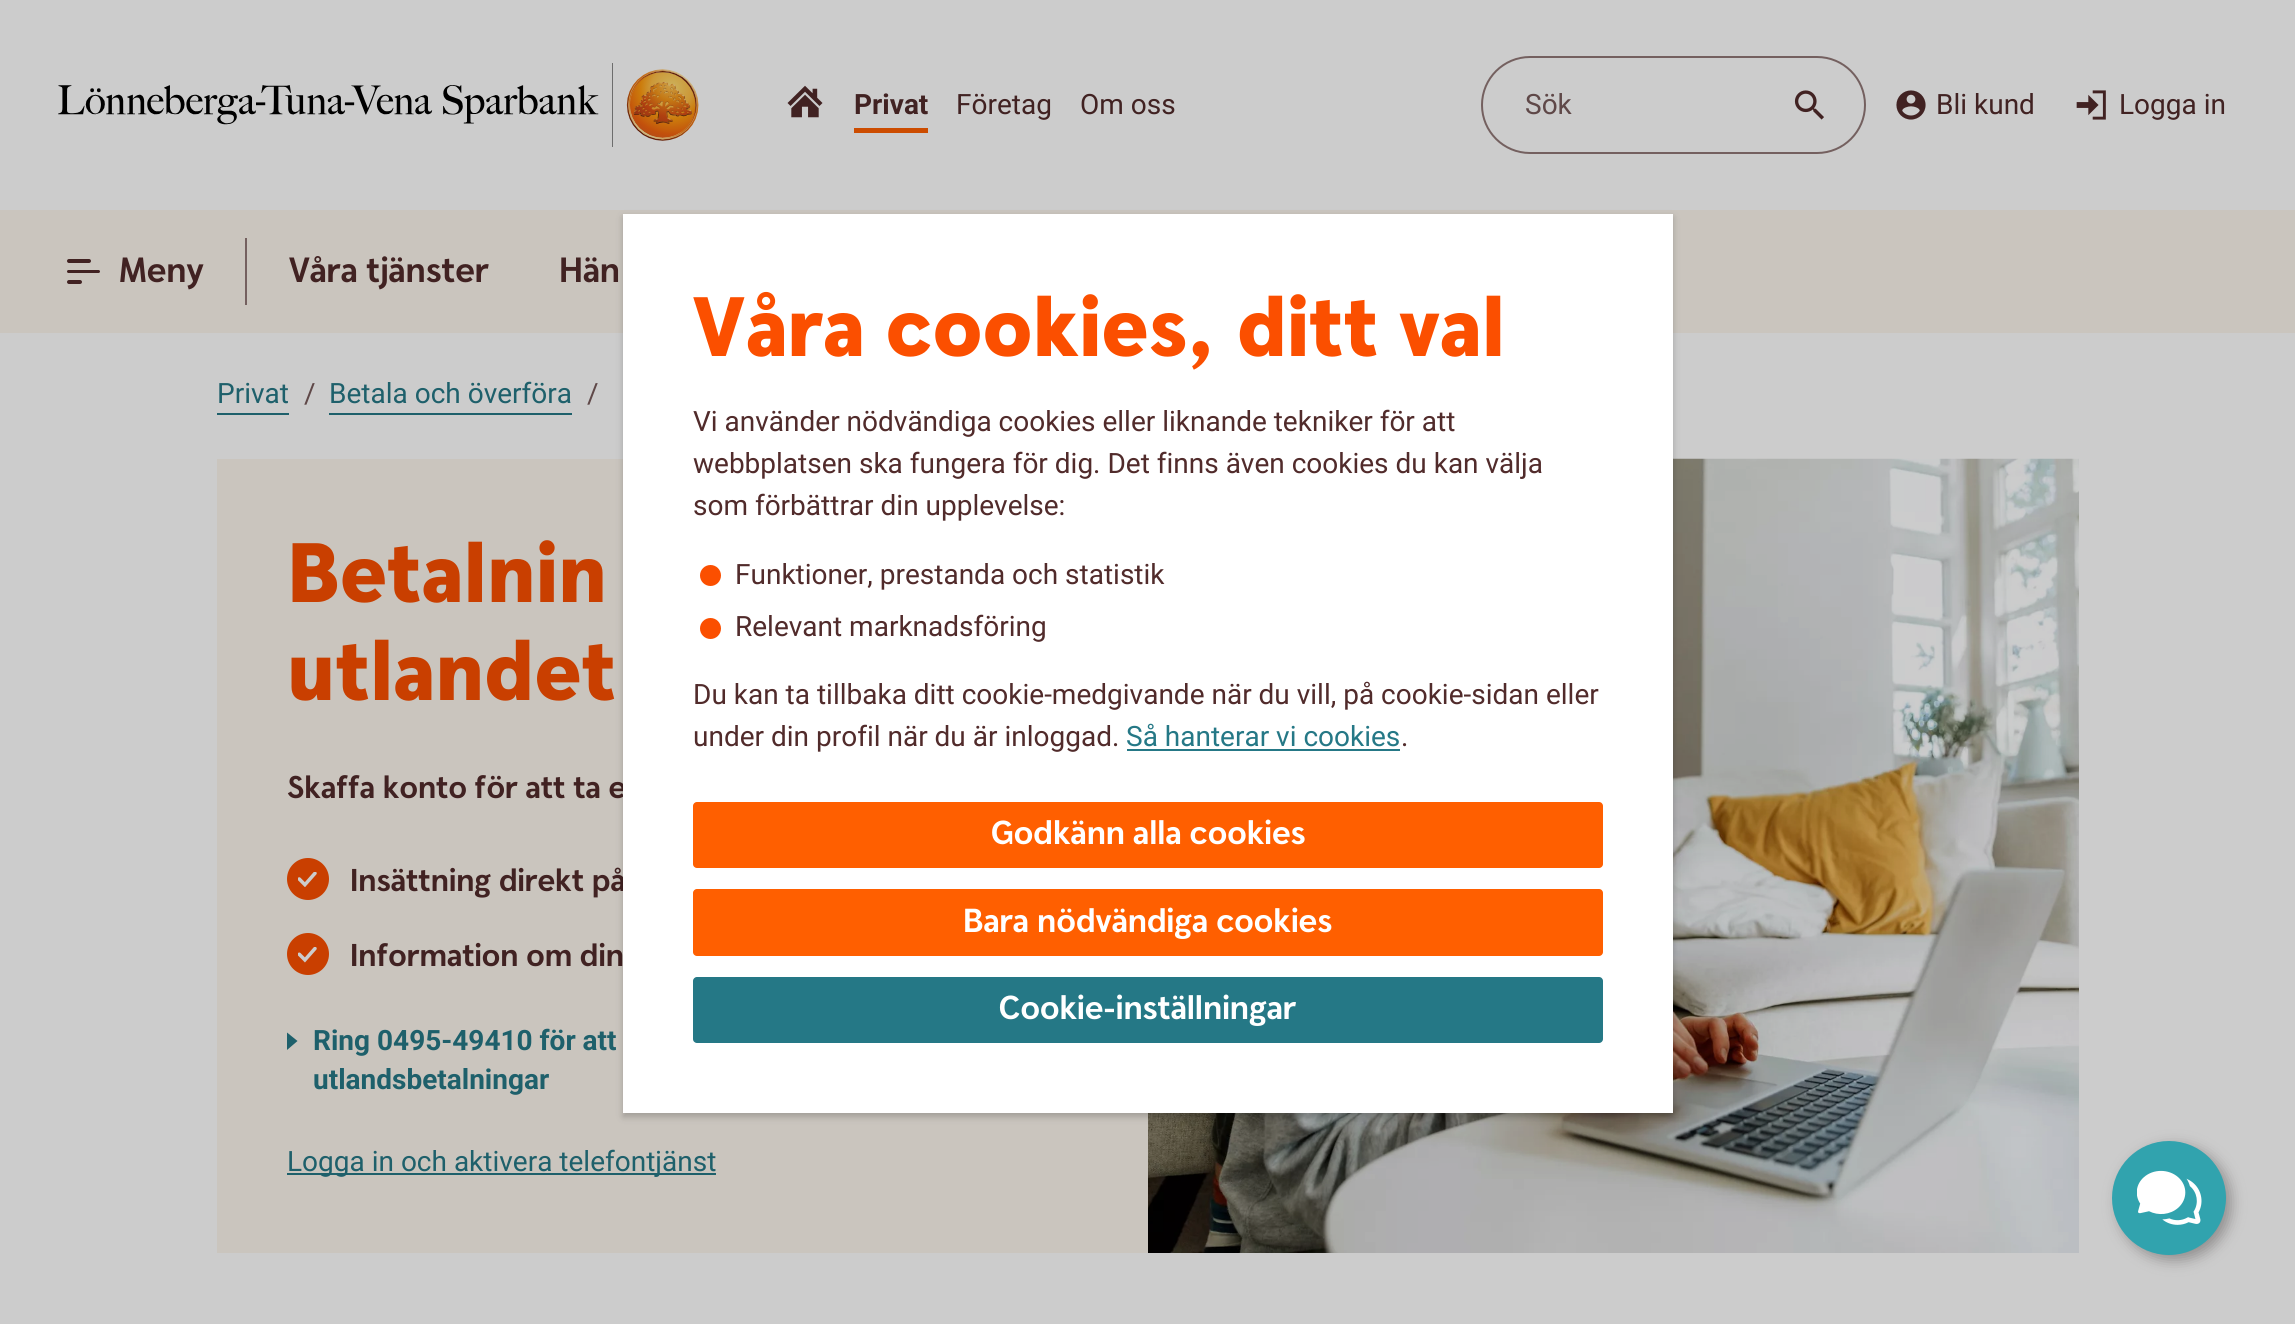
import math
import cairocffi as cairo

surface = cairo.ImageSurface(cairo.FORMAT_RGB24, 2295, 1324)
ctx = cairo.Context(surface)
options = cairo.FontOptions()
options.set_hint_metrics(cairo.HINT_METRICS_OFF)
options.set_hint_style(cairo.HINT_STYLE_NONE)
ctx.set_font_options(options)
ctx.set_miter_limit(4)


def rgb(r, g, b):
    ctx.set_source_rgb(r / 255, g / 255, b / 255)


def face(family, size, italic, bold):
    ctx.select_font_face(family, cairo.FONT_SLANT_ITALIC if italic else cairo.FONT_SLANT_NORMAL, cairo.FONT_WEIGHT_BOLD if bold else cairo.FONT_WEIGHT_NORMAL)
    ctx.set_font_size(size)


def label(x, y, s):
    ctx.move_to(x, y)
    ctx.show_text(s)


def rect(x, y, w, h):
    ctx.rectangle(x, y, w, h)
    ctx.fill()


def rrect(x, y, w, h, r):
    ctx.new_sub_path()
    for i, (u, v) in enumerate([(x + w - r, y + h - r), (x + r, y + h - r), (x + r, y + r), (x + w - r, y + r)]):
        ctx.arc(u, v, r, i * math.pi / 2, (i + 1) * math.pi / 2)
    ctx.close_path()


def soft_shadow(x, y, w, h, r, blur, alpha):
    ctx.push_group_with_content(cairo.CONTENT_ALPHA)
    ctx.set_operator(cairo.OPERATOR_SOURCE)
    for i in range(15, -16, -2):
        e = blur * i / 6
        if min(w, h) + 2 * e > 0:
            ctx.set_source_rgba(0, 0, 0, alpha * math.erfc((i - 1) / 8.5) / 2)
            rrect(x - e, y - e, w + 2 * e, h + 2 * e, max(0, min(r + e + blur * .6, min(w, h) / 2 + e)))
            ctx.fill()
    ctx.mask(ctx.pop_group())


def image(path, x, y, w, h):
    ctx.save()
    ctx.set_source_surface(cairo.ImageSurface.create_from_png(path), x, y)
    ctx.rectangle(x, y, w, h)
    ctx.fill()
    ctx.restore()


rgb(204, 204, 204)
ctx.paint()
image('image0.png', 58, 63, 641, 84)
image('image1.png', 787, 85, 36, 33)
rgb(204, 76, 0)
rect(854, 128, 74, 5)
face('Roboto', 28, 0, 1)
rgb(65, 34, 34)
label(854, 114, 'Privat')
face('Roboto', 28, 0, 0)
label(956, 114, 'Företag')
label(1080, 114, 'Om oss')
rrect(1482, 57, 383, 96, 48)
rgb(116, 96, 95)
ctx.stroke()
rgb(95, 72, 72)
label(1525, 114, 'Sök')
image('image2.png', 1794, 90, 30, 30)
image('image3.png', 1896, 90, 30, 30)
rgb(65, 34, 34)
label(1936, 114, 'Bli kund')
image('image4.png', 2076, 90, 30, 30)
label(2119, 114, 'Logga in')
rgb(202, 197, 190)
rect(0, 210, 2295, 123)
rgb(65, 34, 34)
rrect(67, 259, 24, 4, 2)
ctx.fill()
rrect(67, 270, 33, 3, 1.5)
ctx.fill()
rrect(67, 280, 15, 4, 2)
ctx.fill()
face('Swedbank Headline', 35, 0, 1)
label(119, 282, 'Meny')
rgb(116, 96, 95)
rect(245, 238, 2, 67)
rgb(65, 34, 34)
label(289, 282, 'Våra tjänster')
label(559, 282, 'Hän')
face('Roboto', 28, 0, 0)
rgb(30, 96, 107)
label(217, 403, 'Privat')
rect(217, 413, 72, 2)
rgb(95, 72, 72)
label(304, 403, '/')
rgb(30, 96, 107)
label(329, 403, 'Betala och överföra')
rect(329, 413, 243, 2)
rgb(95, 72, 72)
label(587, 403, '/')
rgb(202, 197, 190)
rect(217, 459, 931, 794)
face('Swedbank Headline Black', 84, 0, 0)
rgb(201, 63, 0)
label(287, 602, 'Betalnin')
label(287, 700, 'utlandet')
face('Swedbank Headline', 31.5, 0, 1)
rgb(65, 34, 34)
label(287, 798, 'Skaffa konto för att ta e')
rgb(201, 63, 0)
ctx.new_path()
ctx.arc(308, 879, 21, 0, 2 * math.pi)
ctx.fill()
rgb(65, 34, 34)
label(350, 891, 'Insättning direkt på')
image('image5.png', 298, 872, 19, 15)
rgb(201, 63, 0)
ctx.arc(308, 954, 21, 0, 2 * math.pi)
ctx.fill()
rgb(65, 34, 34)
label(350, 966, 'Information om din')
image('image6.png', 298, 947, 19, 16)
rgb(30, 96, 107)
ctx.new_path()
ctx.move_to(297.5, 1041)
ctx.line_to(287, 1050)
ctx.line_to(287, 1032.5)
ctx.close_path()
ctx.fill()
face('Roboto', 28, 0, 1)
label(313, 1050, 'Ring 0495-49410 för att')
label(313, 1089, 'utlandsbetalningar')
rect(287, 1173, 429, 2)
face('Roboto', 28, 0, 0)
label(287, 1171, 'Logga in och aktivera telefontjänst')
image('image7.png', 1148, 458, 931, 795)
rgb(0, 0, 0)
soft_shadow(623, 217, 1050, 900, 0, 3.5, 0.2)
rgb(255, 255, 255)
rect(623, 214, 1050, 899)
face('Swedbank Headline Black', 84, 0, 0)
rgb(251, 79, 0)
label(693, 356, 'Våra cookies, ditt val')
face('Roboto', 28, 0, 0)
rgb(81, 43, 43)
label(693, 431, 'Vi använder nödvändiga cookies eller liknande tekniker för att')
label(693, 473, 'webbplatsen ska fungera för dig. Det finns även cookies du kan välja')
label(693, 515, 'som förbättrar din upplevelse:')
rgb(251, 79, 0)
ctx.new_path()
ctx.arc(710.5, 575.5, 10.5, 0, 2 * math.pi)
ctx.fill()
rgb(81, 43, 43)
label(735, 584, 'Funktioner, prestanda och statistik')
rgb(251, 79, 0)
ctx.new_path()
ctx.arc(710.5, 628.5, 10.5, 0, 2 * math.pi)
ctx.fill()
rgb(81, 43, 43)
label(735, 636, 'Relevant marknadsföring')
label(693, 704, 'Du kan ta tillbaka ditt cookie-medgivande när du vill, på cookie-sidan eller')
label(693, 746, 'under din profil när du är inloggad.')
rgb(37, 120, 134)
label(1126, 746, 'Så hanterar vi cookies')
rect(1127, 749, 273, 2)
rgb(81, 43, 43)
label(1401, 746, '.')
rgb(255, 95, 0)
rrect(693, 802, 910, 66, 4)
ctx.fill()
face('Swedbank Headline', 33.25, 0, 1)
rgb(255, 255, 255)
label(991, 844, 'Godkänn alla cookies')
rgb(255, 95, 0)
rrect(693, 889, 910, 67, 4)
ctx.fill()
rgb(255, 255, 255)
label(963, 932, 'Bara nödvändiga cookies')
rgb(37, 120, 134)
rrect(693, 977, 910, 66, 4)
ctx.fill()
rgb(255, 255, 255)
label(999, 1019, 'Cookie-inställningar')
rgb(144, 142, 142)
soft_shadow(2118, 1146, 113, 114, 56.5, 7, 1)
rgb(49, 163, 174)
ctx.arc(2169, 1198, 57, 0, 2 * math.pi)
ctx.fill()
image('image8.png', 2137, 1170, 65, 55)
surface.write_to_png('render.png')
